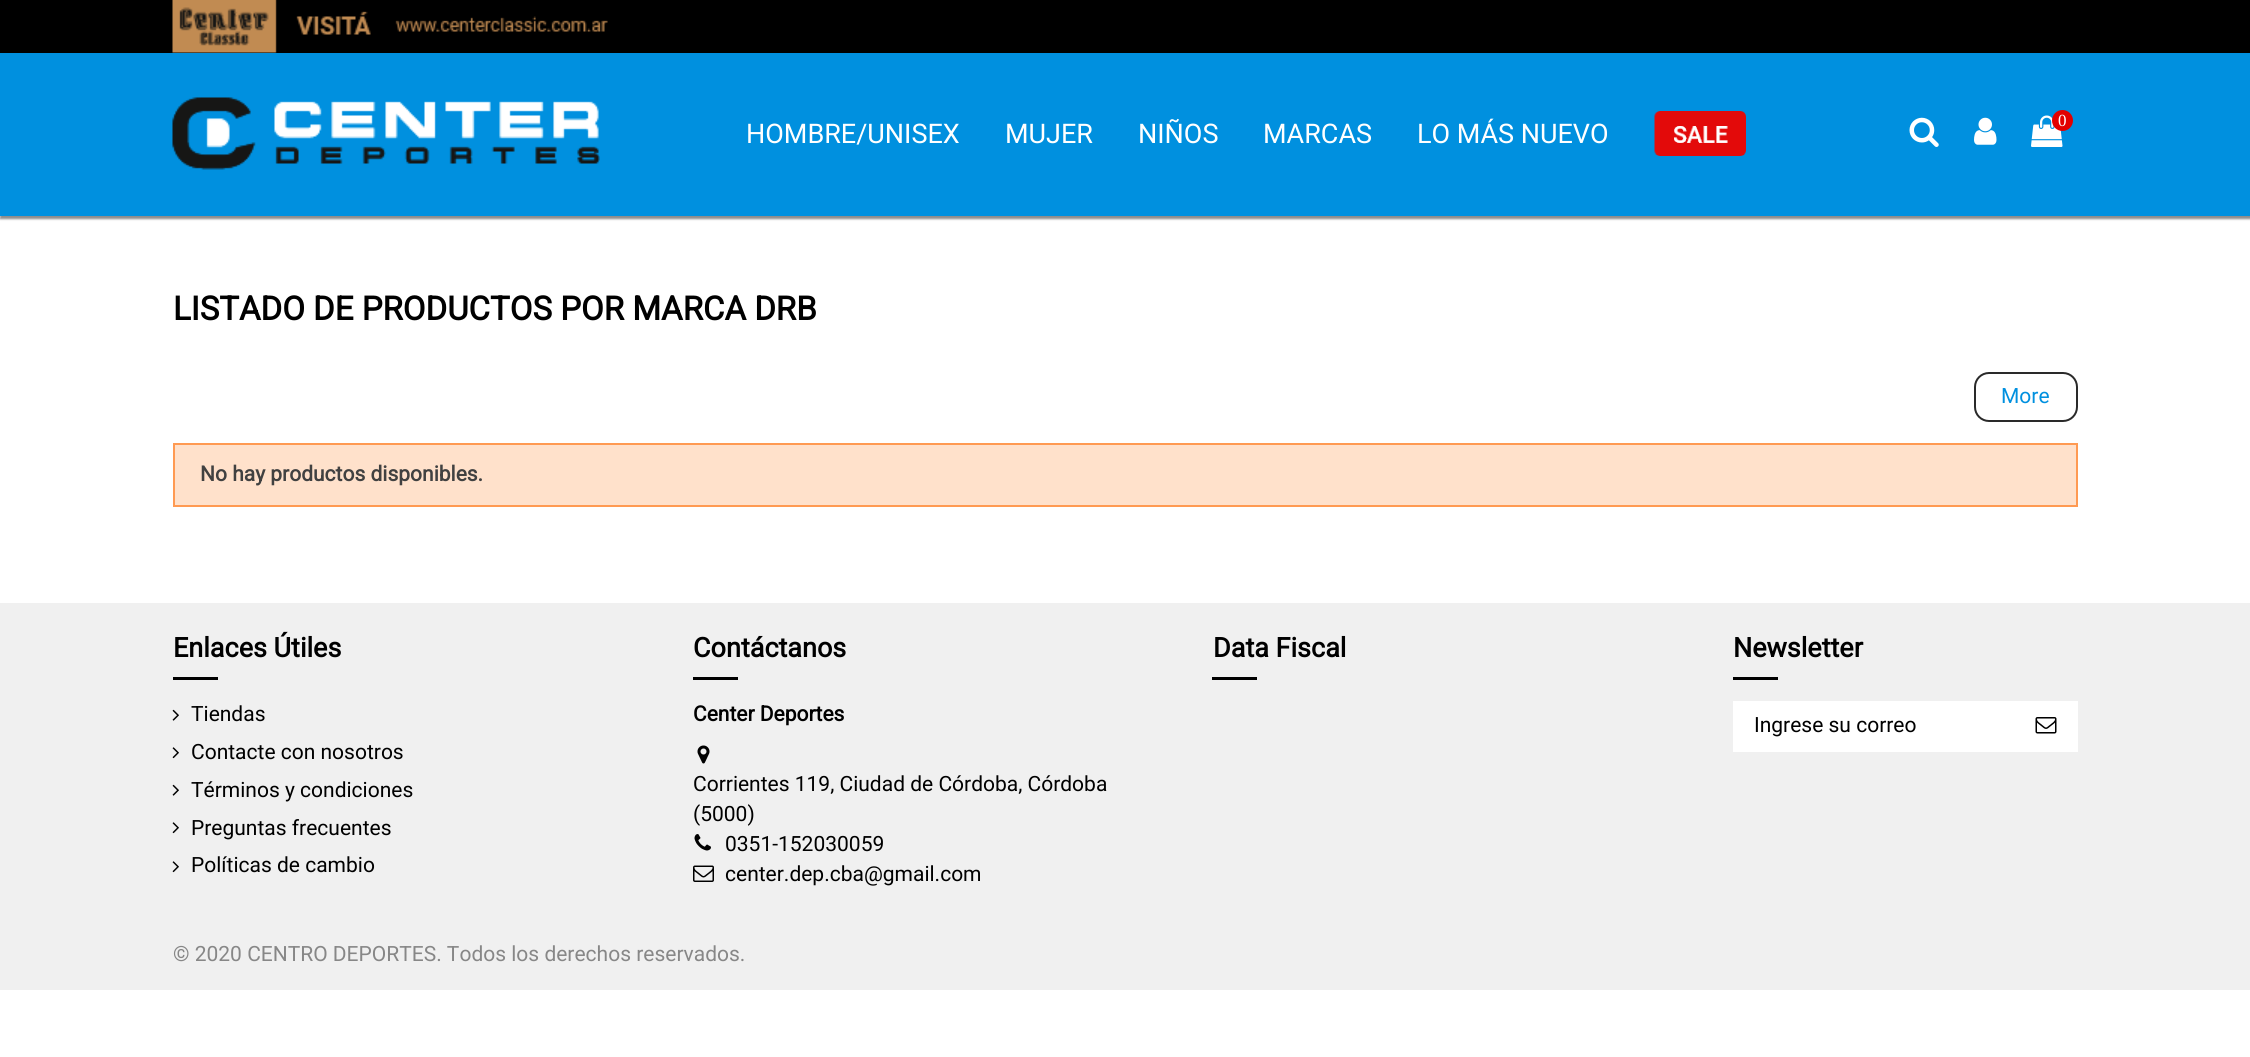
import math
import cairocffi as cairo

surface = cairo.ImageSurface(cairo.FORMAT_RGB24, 2250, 1057)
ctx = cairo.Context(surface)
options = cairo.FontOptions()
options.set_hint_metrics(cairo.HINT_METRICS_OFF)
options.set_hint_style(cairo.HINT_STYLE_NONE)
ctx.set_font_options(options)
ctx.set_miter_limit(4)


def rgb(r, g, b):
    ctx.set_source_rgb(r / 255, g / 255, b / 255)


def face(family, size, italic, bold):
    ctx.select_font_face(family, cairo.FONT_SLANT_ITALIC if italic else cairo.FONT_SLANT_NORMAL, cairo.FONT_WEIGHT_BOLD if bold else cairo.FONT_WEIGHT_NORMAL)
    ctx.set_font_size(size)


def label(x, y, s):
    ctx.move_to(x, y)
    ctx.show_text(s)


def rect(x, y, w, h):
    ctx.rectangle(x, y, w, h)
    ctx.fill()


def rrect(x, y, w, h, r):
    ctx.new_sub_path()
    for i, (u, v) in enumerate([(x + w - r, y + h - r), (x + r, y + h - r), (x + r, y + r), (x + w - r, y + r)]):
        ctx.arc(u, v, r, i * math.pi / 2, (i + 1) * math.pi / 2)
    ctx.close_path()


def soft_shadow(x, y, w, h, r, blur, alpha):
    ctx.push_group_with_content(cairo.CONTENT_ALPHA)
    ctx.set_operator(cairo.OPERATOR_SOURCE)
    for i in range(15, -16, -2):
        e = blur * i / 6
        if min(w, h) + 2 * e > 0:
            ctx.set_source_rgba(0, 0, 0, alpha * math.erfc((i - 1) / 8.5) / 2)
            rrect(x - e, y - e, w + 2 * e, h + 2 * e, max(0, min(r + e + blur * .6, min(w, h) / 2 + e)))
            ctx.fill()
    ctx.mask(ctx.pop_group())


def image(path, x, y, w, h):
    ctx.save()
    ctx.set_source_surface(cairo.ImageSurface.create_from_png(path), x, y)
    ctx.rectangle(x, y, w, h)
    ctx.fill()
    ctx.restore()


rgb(255, 255, 255)
ctx.paint()
rgb(15, 14, 14)
soft_shadow(0, 0, 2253, 219, 0, 1, 0.48)
rgb(0, 144, 223)
rect(0, 53, 2250, 163)
rgb(0, 0, 0)
rect(0, 0, 2250, 53)
image('image0.png', 172, 0, 436, 53)
image('image1.png', 172, 97, 428, 73)
face('Roboto', 27, 0, 0)
rgb(255, 255, 255)
label(746, 143, 'HOMBRE/UNISEX')
label(1005, 143, 'MUJER')
label(1138, 143, 'NIÑOS')
label(1263, 143, 'MARCAS')
label(1417, 143, 'LO MÁS NUEVO')
image('image2.png', 1654, 111, 92, 45)
image('image3.png', 1909, 117, 30, 30)
image('image4.png', 1974, 117, 23, 28)
image('image5.png', 2031, 115, 32, 32)
rgb(226, 0, 0)
ctx.arc(2062.5, 120.5, 10.5, 0, 2 * math.pi)
ctx.fill()
face('Liberation Serif', 17, 0, 0)
rgb(255, 255, 255)
label(2058, 126, '0')
face('Roboto', 33, 0, 1)
rgb(0, 0, 0)
label(173, 320, 'LISTADO DE PRODUCTOS POR MARCA DRB')
rrect(1975, 373, 102, 48, 14)
rgb(42, 42, 42)
ctx.stroke()
face('Roboto', 21, 0, 0)
rgb(0, 144, 223)
label(2001, 403, 'More')
rgb(255, 225, 203)
ctx.rectangle(174, 444, 1903, 62)
ctx.fill_preserve()
rgb(255, 154, 82)
ctx.stroke()
face('Roboto', 21, 0, 1)
rgb(65, 65, 65)
label(200, 481, 'No hay productos disponibles.')
rgb(240, 240, 240)
rect(0, 603, 2250, 387)
face('Roboto', 27, 0, 1)
rgb(0, 0, 0)
label(173, 657, 'Enlaces Útiles')
rect(173, 677, 45, 3)
image('image6.png', 172, 709, 7, 12)
face('Roboto', 21, 0, 0)
label(191, 721, 'Tiendas')
image('image7.png', 172, 747, 7, 12)
label(191, 759, 'Contacte con nosotros')
image('image6.png', 172, 784, 7, 12)
label(191, 797, 'Términos y condiciones')
image('image7.png', 172, 822, 7, 12)
label(191, 835, 'Preguntas frecuentes')
image('image7.png', 172, 861, 7, 12)
label(191, 872, 'Políticas de cambio')
face('Roboto', 27, 0, 1)
label(693, 657, 'Contáctanos')
rect(693, 677, 45, 3)
face('Roboto', 21, 0, 1)
label(693, 721, 'Center Deportes')
image('image8.png', 697, 745, 13, 19)
face('Roboto', 21, 0, 0)
label(693, 791, 'Corrientes 119, Ciudad de Córdoba, Córdoba')
label(693, 821, '(5000)')
image('image9.png', 694, 834, 17, 17)
label(725, 851, '0351-152030059')
image('image10.png', 693, 865, 21, 17)
label(725, 881, 'center.dep.cba@gmail.com')
face('Roboto', 27, 0, 1)
label(1213, 657, 'Data Fiscal')
rect(1212, 677, 45, 3)
label(1733, 657, 'Newsletter')
rect(1733, 677, 45, 3)
rgb(255, 255, 255)
rect(1733, 701, 345, 51)
face('Roboto', 21, 0, 0)
rgb(0, 0, 0)
label(1754, 732, 'Ingrese su correo')
image('image11.png', 2035, 717, 22, 17)
rgb(135, 135, 135)
label(173, 961, '© 2020 CENTRO DEPORTES. Todos los derechos reservados.')
surface.write_to_png('render.png')
